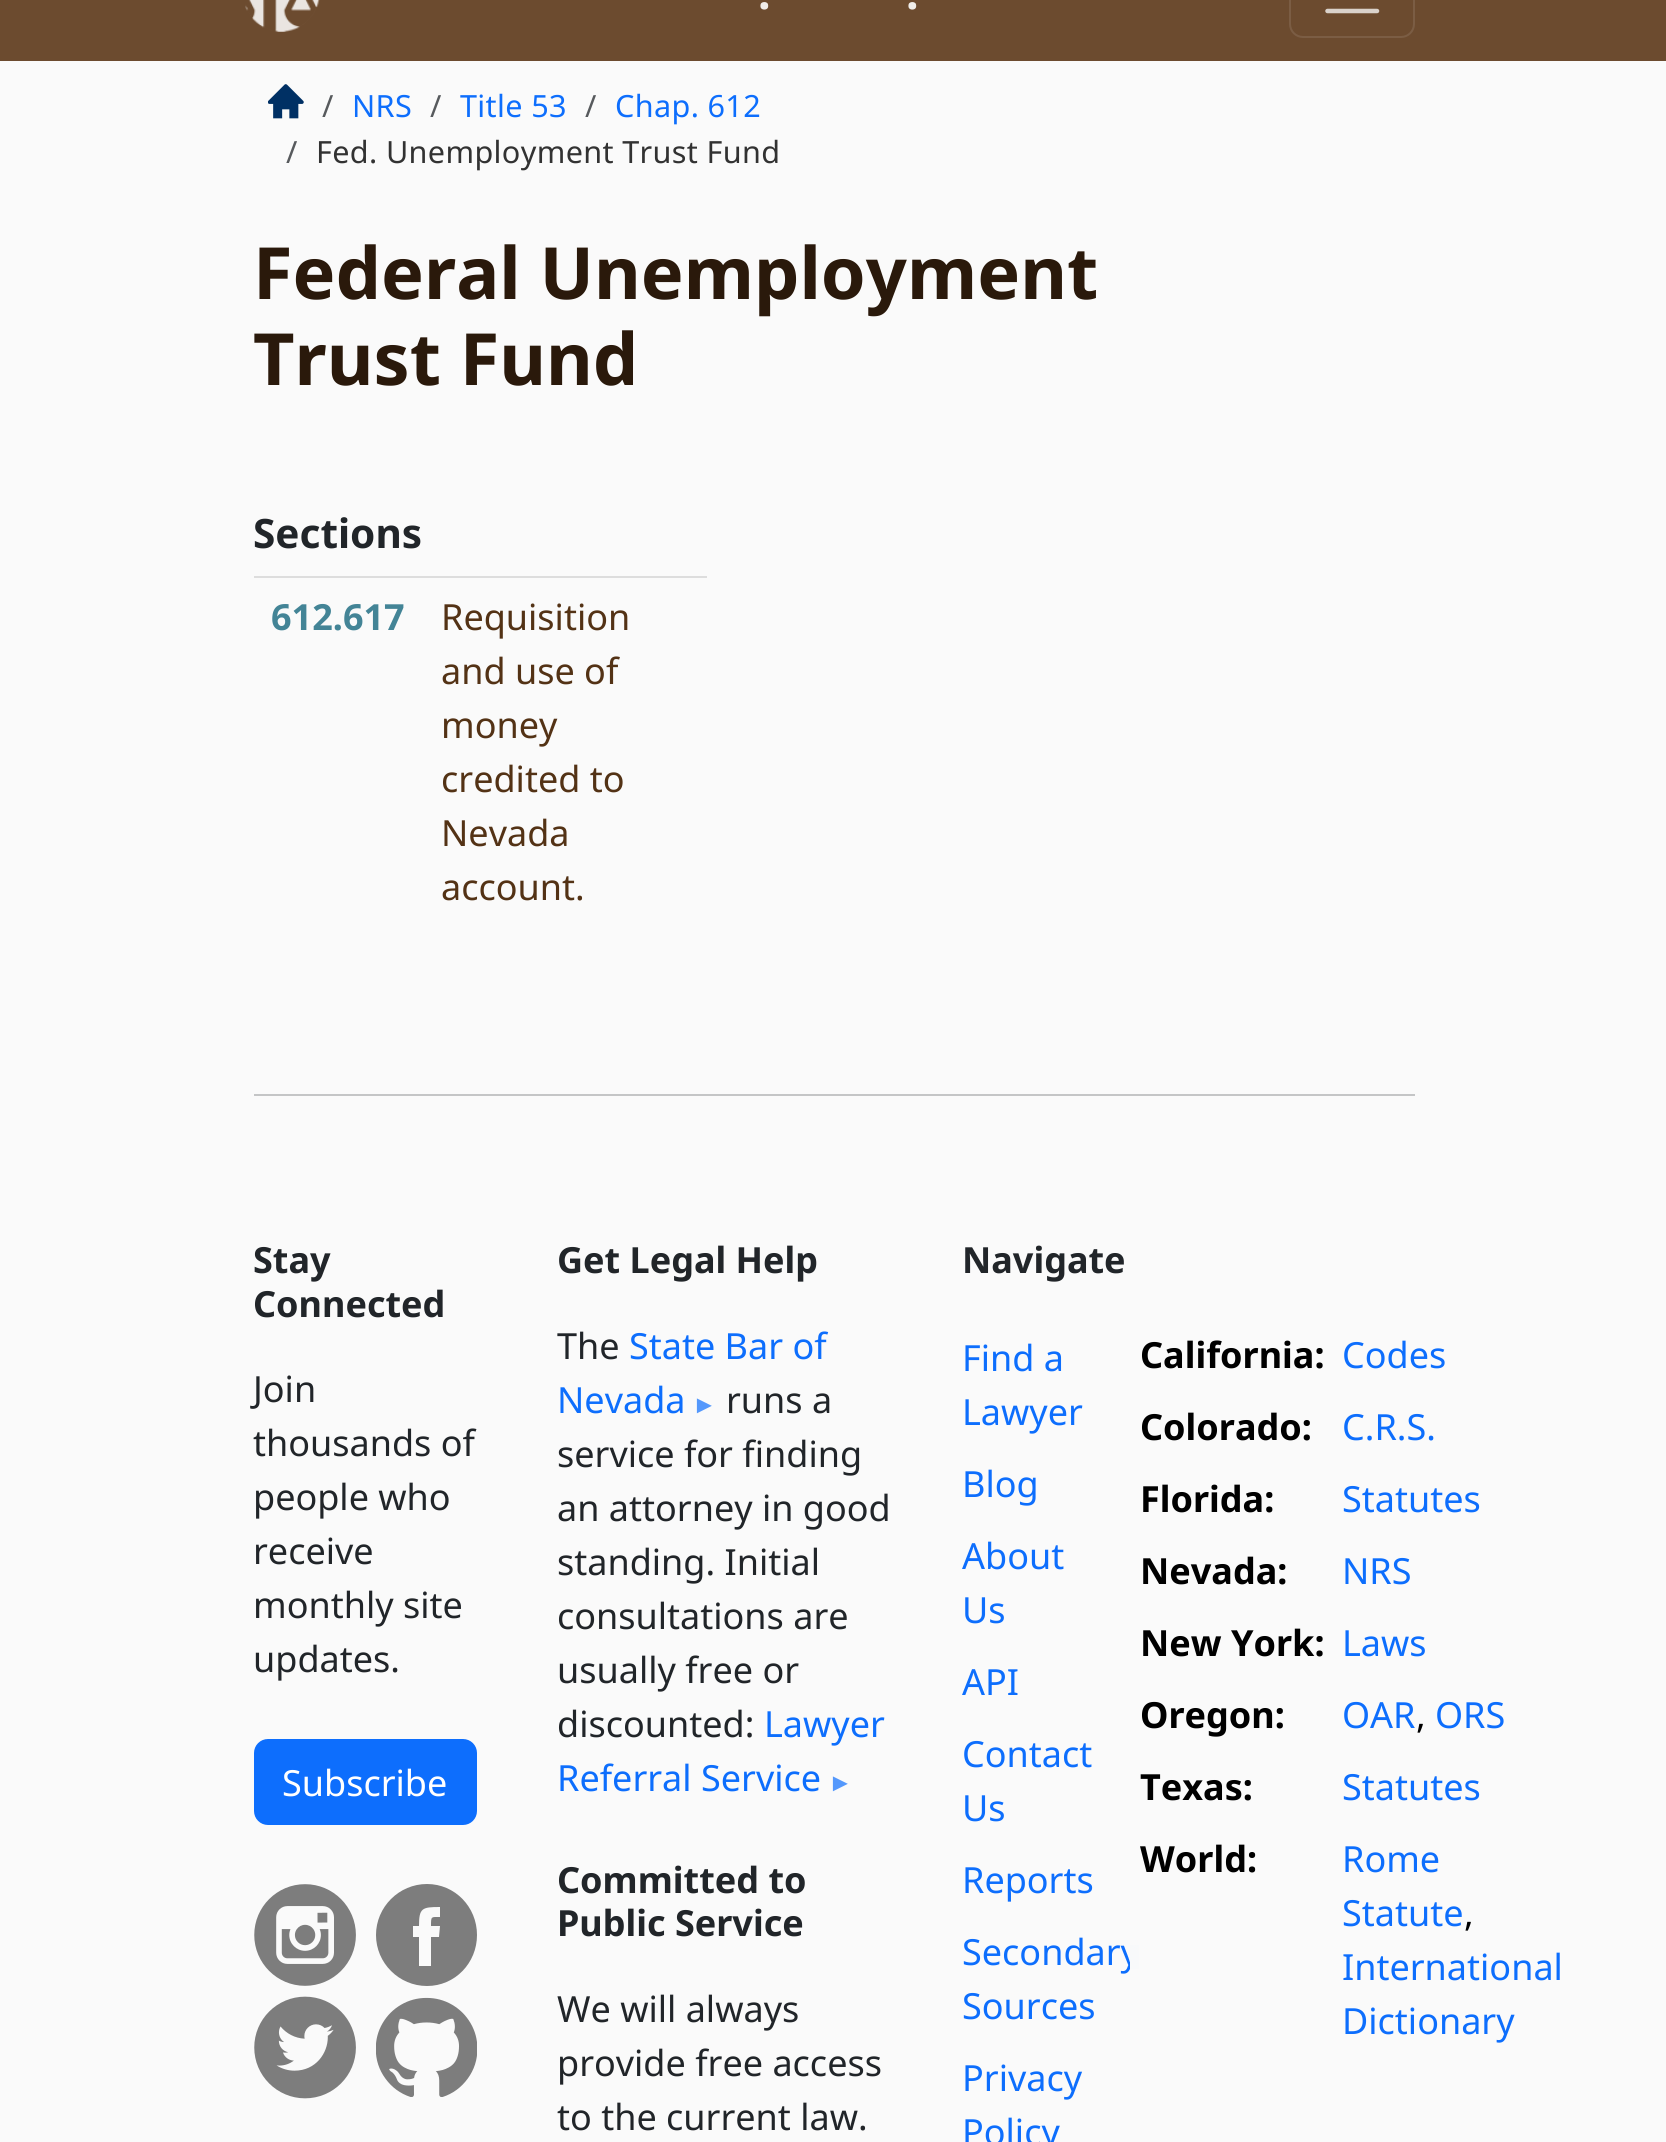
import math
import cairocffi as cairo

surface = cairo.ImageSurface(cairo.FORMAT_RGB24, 1666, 2142)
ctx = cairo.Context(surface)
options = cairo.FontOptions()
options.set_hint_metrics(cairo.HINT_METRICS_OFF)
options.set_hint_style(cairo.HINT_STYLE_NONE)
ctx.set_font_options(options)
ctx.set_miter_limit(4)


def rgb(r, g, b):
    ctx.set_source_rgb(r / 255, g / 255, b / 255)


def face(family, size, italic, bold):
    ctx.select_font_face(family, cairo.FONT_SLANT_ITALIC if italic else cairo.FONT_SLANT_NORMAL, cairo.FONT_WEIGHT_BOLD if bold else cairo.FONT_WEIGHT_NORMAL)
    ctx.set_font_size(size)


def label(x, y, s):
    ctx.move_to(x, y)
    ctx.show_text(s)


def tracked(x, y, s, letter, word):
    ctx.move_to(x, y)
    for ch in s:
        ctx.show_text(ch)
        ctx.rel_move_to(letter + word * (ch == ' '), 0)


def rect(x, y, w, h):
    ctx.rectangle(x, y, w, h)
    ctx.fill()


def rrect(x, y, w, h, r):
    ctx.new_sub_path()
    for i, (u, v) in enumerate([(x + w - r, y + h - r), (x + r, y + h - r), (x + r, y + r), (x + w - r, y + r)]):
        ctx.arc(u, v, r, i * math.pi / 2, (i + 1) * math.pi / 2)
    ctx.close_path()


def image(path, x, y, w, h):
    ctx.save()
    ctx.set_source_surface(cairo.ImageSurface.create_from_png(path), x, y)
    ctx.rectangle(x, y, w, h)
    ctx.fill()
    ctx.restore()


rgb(250, 250, 250)
ctx.paint()
rgb(108, 75, 47)
rect(0, 0, 1666, 61)
image('image0.png', 245, 0, 75, 32)
face('Noto Sans', 45, 0, 1)
rgb(240, 237, 234)
label(758, 9, '.')
label(906, 9, '.')
rrect(1290, -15, 124, 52, 13)
rgb(123, 93, 68)
ctx.stroke()
ctx.new_path()
ctx.move_to(1327.5, -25)
ctx.line_to(1377, -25)
ctx.move_to(1327.5, -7)
ctx.line_to(1377, -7)
ctx.move_to(1327.5, 11)
ctx.line_to(1377, 11)
rgb(218, 210, 203)
ctx.set_line_width(4.5)
ctx.set_line_cap(cairo.LINE_CAP_ROUND)
ctx.stroke()
image('image1.png', 268, 84, 36, 35)
face('Noto Sans', 30.6, 0, 0)
rgb(87, 90, 93)
tracked(322, 117, '/', 0.35, 0)
rgb(13, 110, 253)
tracked(352, 117, 'NRS', 0.35, 0)
rgb(87, 90, 93)
tracked(430, 117, '/', 0.35, 0)
rgb(13, 110, 253)
tracked(460, 117, 'Title 53', 0.35, 0)
rgb(87, 90, 93)
tracked(585, 117, '/', 0.35, 0)
rgb(13, 110, 253)
tracked(615, 117, 'Chap. 612', 0.35, 0)
rgb(87, 90, 93)
tracked(286, 163, '/', 0.35, 0)
rgb(50, 50, 50)
tracked(316, 163, 'Fed. Unemployment Trust Fund', 0.35, 0)
face('Noto Sans', 72, 0, 1)
rgb(42, 25, 11)
label(253, 299, 'Federal Unemployment')
label(253, 385, 'Trust Fund')
face('Noto Sans', 40.5, 0, 1)
rgb(33, 37, 41)
label(253, 548, 'Sections')
rgb(221, 221, 221)
rect(254, 576, 453, 2)
face('Noto Sans', 36, 0, 1)
rgb(67, 132, 150)
label(271, 630, '612.617')
face('Noto Sans', 36, 0, 0)
rgb(83, 50, 21)
label(441, 630, 'Requisition')
label(441, 684, 'and use of')
label(441, 738, 'money')
label(441, 792, 'credited to')
label(441, 846, 'Nevada')
label(441, 900, 'account.')
rgb(196, 197, 198)
rect(254, 1094, 1161, 2)
face('Noto Sans', 36, 0, 1)
rgb(33, 37, 41)
label(253, 1273, 'Stay')
label(253, 1317, 'Connected')
face('Noto Sans', 36, 0, 0)
label(253, 1402, 'Join')
label(253, 1456, 'thousands of')
label(253, 1510, 'people who')
label(253, 1564, 'receive')
label(253, 1618, 'monthly site')
label(253, 1672, 'updates.')
rgb(13, 110, 253)
rrect(255, 1740, 221, 84, 13)
ctx.fill_preserve()
ctx.set_line_width(2)
ctx.set_line_cap(cairo.LINE_CAP_BUTT)
ctx.stroke()
rgb(255, 255, 255)
label(282, 1796, 'Subscribe')
image('image2.png', 254, 1884, 102, 102)
rgb(125, 125, 125)
ctx.new_path()
ctx.move_to(427, 1884)
ctx.curve_to(399, 1884, 376, 1907, 376, 1935)
ctx.curve_to(376, 1963, 399, 1986, 427, 1986)
ctx.curve_to(455, 1986, 477, 1963, 477, 1935)
ctx.curve_to(477, 1907, 455, 1884, 427, 1884)
ctx.close_path()
ctx.move_to(439, 1937)
ctx.line_to(431, 1937)
ctx.line_to(431, 1966)
ctx.line_to(419, 1966)
ctx.line_to(419, 1937)
ctx.line_to(413, 1937)
ctx.line_to(413, 1926)
ctx.line_to(419, 1926)
ctx.curve_to(419, 1908, 422, 1907, 440, 1907)
ctx.line_to(440, 1917)
ctx.curve_to(431, 1917, 431, 1916, 431, 1926)
ctx.line_to(440, 1926)
ctx.close_path()
ctx.fill()
image('image3.png', 254, 1996, 102, 103)
image('image4.png', 376, 1997, 101, 100)
face('Noto Sans', 36, 0, 1)
rgb(33, 37, 41)
label(557, 1273, 'Get Legal Help')
face('Noto Sans', 36, 0, 0)
label(557, 1359, 'The')
rgb(13, 110, 253)
label(629, 1359, 'State Bar of')
label(557, 1413, 'Nevada')
face('Liberation Sans', 25, 0, 0)
rgb(84, 152, 252)
label(692, 1413, '►')
face('Noto Sans', 36, 0, 0)
rgb(33, 37, 41)
label(726, 1413, 'runs a')
label(557, 1467, 'service for finding')
label(557, 1521, 'an attorney in good')
label(557, 1575, 'standing. Initial')
label(557, 1629, 'consultations are')
label(557, 1683, 'usually free or')
label(557, 1737, 'discounted:')
rgb(13, 110, 253)
label(764, 1737, 'Lawyer')
label(557, 1791, 'Referral Service')
face('Liberation Sans', 25, 0, 0)
rgb(84, 152, 252)
label(828, 1791, '►')
face('Noto Sans', 36, 0, 1)
rgb(33, 37, 41)
label(557, 1893, 'Committed to')
label(557, 1936, 'Public Service')
face('Noto Sans', 36, 0, 0)
label(557, 2022, 'We will always')
label(557, 2076, 'provide free access')
label(557, 2130, 'to the current law.')
face('Noto Sans', 36, 0, 1)
label(962, 1273, 'Navigate')
face('Noto Sans', 36, 0, 0)
rgb(13, 110, 253)
label(962, 1371, 'Find a')
label(962, 1425, 'Lawyer')
label(962, 1497, 'Blog')
label(962, 1569, 'About')
label(962, 1623, 'Us')
label(962, 1695, 'API')
label(962, 1767, 'Contact')
label(962, 1821, 'Us')
label(962, 1893, 'Reports')
label(962, 1965, 'Secondary')
label(962, 2019, 'Sources')
label(962, 2091, 'Privacy')
label(962, 2145, 'Policy')
face('Noto Sans', 36, 0, 1)
rgb(0, 0, 0)
label(1140, 1368, 'California:')
face('Noto Sans', 36, 0, 0)
rgb(13, 110, 253)
label(1342, 1368, 'Codes')
face('Noto Sans', 36, 0, 1)
rgb(0, 0, 0)
label(1140, 1440, 'Colorado:')
face('Noto Sans', 36, 0, 0)
rgb(13, 110, 253)
label(1342, 1440, 'C.R.S.')
face('Noto Sans', 36, 0, 1)
rgb(0, 0, 0)
label(1140, 1512, 'Florida:')
face('Noto Sans', 36, 0, 0)
rgb(13, 110, 253)
label(1342, 1512, 'Statutes')
face('Noto Sans', 36, 0, 1)
rgb(0, 0, 0)
label(1140, 1584, 'Nevada:')
face('Noto Sans', 36, 0, 0)
rgb(13, 110, 253)
label(1342, 1584, 'NRS')
face('Noto Sans', 36, 0, 1)
rgb(0, 0, 0)
label(1140, 1656, 'New York:')
face('Noto Sans', 36, 0, 0)
rgb(13, 110, 253)
label(1342, 1656, 'Laws')
face('Noto Sans', 36, 0, 1)
rgb(0, 0, 0)
label(1140, 1728, 'Oregon:')
face('Noto Sans', 36, 0, 0)
rgb(13, 110, 253)
label(1342, 1728, 'OAR')
rgb(0, 0, 0)
label(1416, 1728, ',')
rgb(13, 110, 253)
label(1435, 1728, 'ORS')
face('Noto Sans', 36, 0, 1)
rgb(0, 0, 0)
label(1140, 1800, 'Texas:')
face('Noto Sans', 36, 0, 0)
rgb(13, 110, 253)
label(1342, 1800, 'Statutes')
rgb(248, 249, 250)
rect(1130, 1945, 9, 24)
face('Noto Sans', 36, 0, 1)
rgb(0, 0, 0)
label(1140, 1872, 'World:')
face('Noto Sans', 36, 0, 0)
rgb(13, 110, 253)
label(1342, 1872, 'Rome')
label(1342, 1926, 'Statute')
rgb(0, 0, 0)
label(1464, 1926, ',')
rgb(13, 110, 253)
label(1342, 1980, 'International')
label(1342, 2034, 'Dictionary')
surface.write_to_png('render.png')
